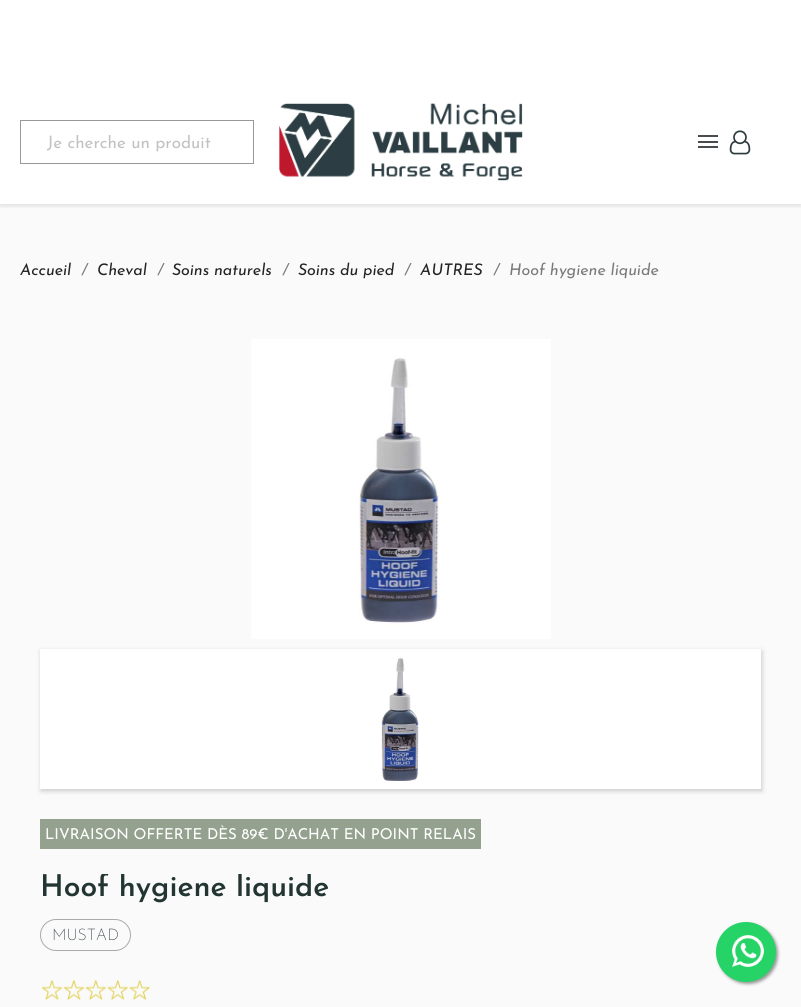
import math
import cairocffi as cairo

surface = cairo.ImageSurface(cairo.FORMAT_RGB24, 801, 1007)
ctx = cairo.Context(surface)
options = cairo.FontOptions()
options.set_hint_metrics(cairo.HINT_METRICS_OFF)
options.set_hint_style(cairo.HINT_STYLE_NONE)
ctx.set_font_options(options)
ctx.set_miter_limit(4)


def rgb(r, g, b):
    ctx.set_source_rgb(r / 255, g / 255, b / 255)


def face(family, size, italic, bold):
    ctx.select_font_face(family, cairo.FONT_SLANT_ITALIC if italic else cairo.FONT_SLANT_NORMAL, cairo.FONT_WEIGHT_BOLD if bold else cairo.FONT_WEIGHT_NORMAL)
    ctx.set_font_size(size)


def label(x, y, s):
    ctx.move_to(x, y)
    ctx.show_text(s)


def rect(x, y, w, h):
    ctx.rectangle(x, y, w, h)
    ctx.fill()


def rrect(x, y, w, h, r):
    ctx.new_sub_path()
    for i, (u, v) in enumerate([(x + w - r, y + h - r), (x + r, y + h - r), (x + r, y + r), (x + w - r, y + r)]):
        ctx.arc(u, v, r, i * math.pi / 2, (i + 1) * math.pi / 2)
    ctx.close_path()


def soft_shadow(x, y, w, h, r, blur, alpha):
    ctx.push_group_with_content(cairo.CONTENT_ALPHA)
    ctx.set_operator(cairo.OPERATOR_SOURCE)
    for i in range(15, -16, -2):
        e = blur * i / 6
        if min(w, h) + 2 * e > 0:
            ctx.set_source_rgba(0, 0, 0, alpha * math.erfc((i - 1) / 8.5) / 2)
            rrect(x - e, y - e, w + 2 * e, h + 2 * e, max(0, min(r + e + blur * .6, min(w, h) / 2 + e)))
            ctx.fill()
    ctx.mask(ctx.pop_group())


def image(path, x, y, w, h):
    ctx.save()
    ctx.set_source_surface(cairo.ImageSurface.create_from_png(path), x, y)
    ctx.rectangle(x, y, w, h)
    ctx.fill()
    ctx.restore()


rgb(255, 255, 255)
ctx.paint()
rgb(250, 250, 250)
rect(0, 204, 801, 803)
ctx.save()
ctx.rectangle(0, 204, 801, 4)
ctx.clip()
rgb(0, 0, 0)
soft_shadow(0, 2, 801, 204, 0, 2.5, 0.11)
ctx.restore()
ctx.rectangle(20.5, 120.5, 233, 43)
rgb(153, 153, 153)
ctx.set_line_width(1)
ctx.stroke()
ctx.save()
ctx.rectangle(47, 135, 175, 17)
ctx.clip()
face('Josefin Sans', 17, 0, 0)
rgb(194, 194, 194)
label(47, 148, 'Je cherche un produit')
ctx.restore()
image('image0.png', 279, 103, 244, 78)
rgb(73, 76, 79)
rect(698, 141, 20, 2)
rect(698, 135, 20, 2)
rect(698, 146, 20, 2)
image('image1.png', 729, 130, 22, 25)
face('Josefin Sans', 16, 1, 0)
rgb(35, 35, 35)
label(20, 275, 'Accueil')
rgb(122, 122, 122)
label(81, 275, '/')
rgb(35, 35, 35)
label(97, 275, 'Cheval')
rgb(122, 122, 122)
label(157, 275, '/')
rgb(35, 35, 35)
label(172, 275, 'Soins naturels')
rgb(122, 122, 122)
label(282, 275, '/')
rgb(35, 35, 35)
label(298, 275, 'Soins du pied')
rgb(122, 122, 122)
label(404, 275, '/')
rgb(35, 35, 35)
label(420, 275, 'AUTRES')
rgb(122, 122, 122)
label(493, 275, '/')
label(509, 275, 'Hoof hygiene liquide')
image('image2.png', 251, 339, 300, 300)
rgb(0, 0, 0)
soft_shadow(41, 651, 721, 140, 0, 2.5, 0.2)
rgb(255, 255, 255)
rect(40, 649, 721, 140)
image('image3.png', 381, 658, 38, 123)
rgb(149, 161, 143)
rect(40, 819, 441, 30)
face('Josefin Sans', 15, 0, 0)
rgb(255, 255, 255)
label(45, 839, 'LIVRAISON OFFERTE DÈS 89€ D\'ACHAT EN POINT RELAIS')
ctx.save()
ctx.rectangle(40, 874, 721, 30)
ctx.clip()
face('Josefin Sans SemiBold', 30, 0, 0)
rgb(34, 53, 50)
label(40, 896, 'Hoof hygiene liquide')
ctx.restore()
rrect(40.5, 919.5, 90, 31, 15.5)
rgb(170, 170, 170)
ctx.stroke()
face('Josefin Sans ExtraLight', 16, 0, 0)
rgb(50, 64, 68)
label(52, 940, 'MUSTAD')
image('image4.png', 41, 980, 22, 20)
image('image5.png', 63, 980, 22, 20)
image('image6.png', 85, 980, 22, 20)
image('image7.png', 107, 980, 22, 20)
image('image8.png', 129, 980, 21, 20)
rgb(153, 153, 153)
soft_shadow(718, 924, 60, 60, 30, 1.5, 1)
rgb(37, 211, 102)
ctx.arc(746, 952, 30, 0, 2 * math.pi)
ctx.fill()
image('image9.png', 732, 935, 32, 32)
surface.write_to_png('render.png')
